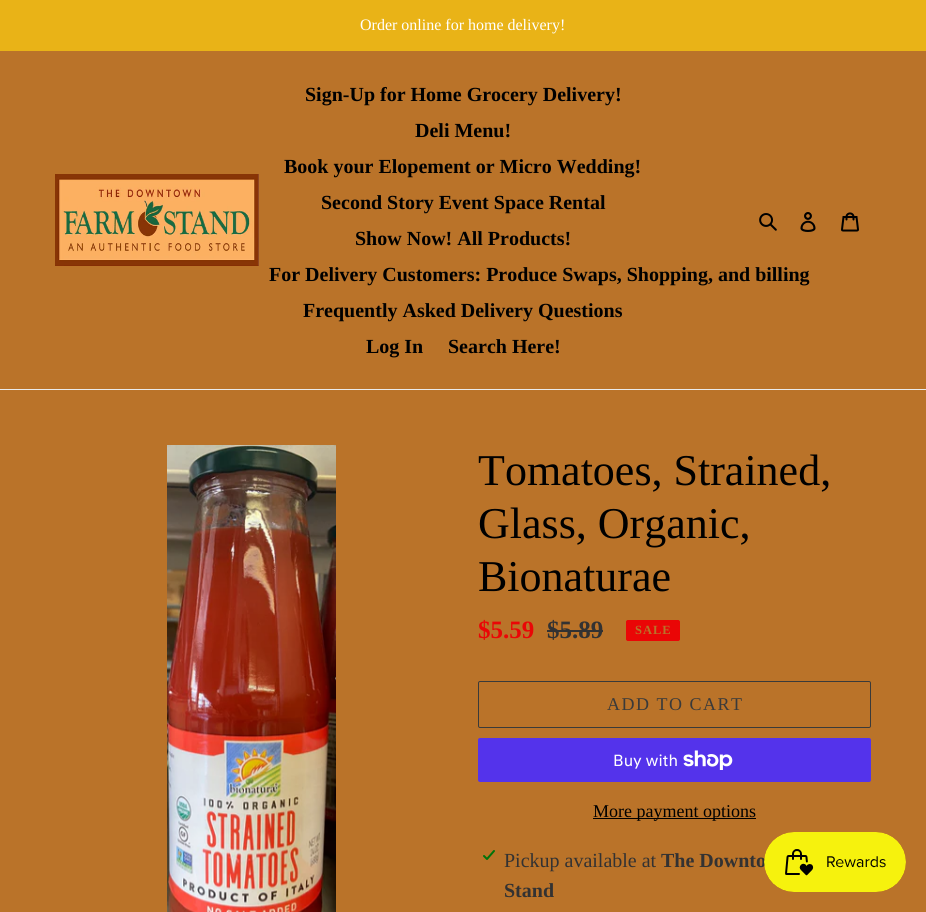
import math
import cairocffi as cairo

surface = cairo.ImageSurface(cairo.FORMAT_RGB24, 926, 912)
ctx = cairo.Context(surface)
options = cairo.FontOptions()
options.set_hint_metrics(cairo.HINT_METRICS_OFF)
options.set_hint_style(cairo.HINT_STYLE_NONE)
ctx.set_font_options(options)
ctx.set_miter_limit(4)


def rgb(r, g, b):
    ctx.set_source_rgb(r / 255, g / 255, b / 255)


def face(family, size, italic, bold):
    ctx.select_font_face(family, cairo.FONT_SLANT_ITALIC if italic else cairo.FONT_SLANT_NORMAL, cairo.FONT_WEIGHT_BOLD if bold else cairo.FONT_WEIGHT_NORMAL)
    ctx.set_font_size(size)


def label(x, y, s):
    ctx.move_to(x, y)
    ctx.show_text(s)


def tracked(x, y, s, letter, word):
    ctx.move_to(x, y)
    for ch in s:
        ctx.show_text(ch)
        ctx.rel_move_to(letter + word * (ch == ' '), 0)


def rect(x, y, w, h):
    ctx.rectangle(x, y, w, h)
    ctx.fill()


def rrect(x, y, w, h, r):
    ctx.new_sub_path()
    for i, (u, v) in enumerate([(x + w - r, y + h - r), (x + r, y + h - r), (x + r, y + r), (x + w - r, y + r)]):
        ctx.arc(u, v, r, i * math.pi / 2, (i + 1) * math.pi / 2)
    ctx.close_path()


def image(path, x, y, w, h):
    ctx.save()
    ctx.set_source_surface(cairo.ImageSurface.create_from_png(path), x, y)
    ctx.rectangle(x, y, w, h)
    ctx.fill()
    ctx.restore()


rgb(186, 115, 41)
ctx.paint()
rgb(233, 179, 23)
rect(0, 0, 926, 51)
face('Liberation Serif', 16, 0, 0)
rgb(255, 255, 255)
label(360, 30, 'Order online for home delivery!')
rgb(235, 235, 235)
rect(0, 389, 926, 1)
image('image0.png', 55, 174, 204, 92)
face('Liberation Serif', 20, 0, 1)
rgb(0, 0, 0)
label(305, 101, 'Sign-Up for Home Grocery Delivery!')
label(415, 137, 'Deli Menu!')
label(284, 173, 'Book your Elopement or Micro Wedding!')
label(321, 209, 'Second Story Event Space Rental')
label(355, 245, 'Show Now! All Products!')
label(269, 281, 'For Delivery Customers: Produce Swaps, Shopping, and billing')
label(303, 317, 'Frequently Asked Delivery Questions')
label(366, 353, 'Log In')
label(448, 353, 'Search Here!')
image('image1.png', 759, 213, 18, 18)
image('image2.png', 800, 212, 16, 20)
image('image3.png', 841, 212, 18, 20)
image('image4.png', 167, 445, 169, 467)
face('Liberation Serif', 44, 0, 0)
label(478, 485, 'Tomatoes, Strained,')
label(478, 538, 'Glass, Organic,')
label(478, 591, 'Bionaturae')
face('Liberation Serif', 25, 0, 1)
rgb(234, 6, 6)
label(478, 638, '$5.59')
rgb(51, 50, 50)
label(547, 638, '$5.89')
rect(547, 630, 56, 2)
rgb(234, 6, 6)
rrect(626.5, 620.5, 53, 20, 1.5)
ctx.fill_preserve()
ctx.set_line_width(1)
ctx.stroke()
face('Liberation Serif', 12.5, 0, 1)
rgb(186, 115, 41)
tracked(635, 634, 'SALE', 1, 0)
rrect(478.5, 681.5, 392, 46, 1.5)
rgb(58, 58, 58)
ctx.stroke()
face('Liberation Serif', 18, 0, 0)
tracked(607, 710, 'ADD TO CART', 1.5, 0)
rgb(84, 51, 235)
rrect(478, 738, 393, 44, 2)
ctx.fill()
face('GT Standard', 16, 0, 0)
rgb(255, 255, 255)
label(613, 766, 'Buy with')
image('image5.png', 683, 750, 50, 20)
rgb(0, 0, 0)
rect(593, 818, 163, 1)
face('Liberation Serif', 18, 0, 0)
label(593, 817, 'More payment options')
image('image6.png', 483, 850, 12, 10)
face('Liberation Serif', 20, 0, 0)
rgb(51, 50, 50)
label(504, 867, 'Pickup available at')
face('Liberation Serif', 20, 0, 1)
label(661, 867, 'The Downto')
label(504, 897, 'Stand')
image('image7.png', 764, 832, 142, 60)
surface.write_to_png('render.png')
